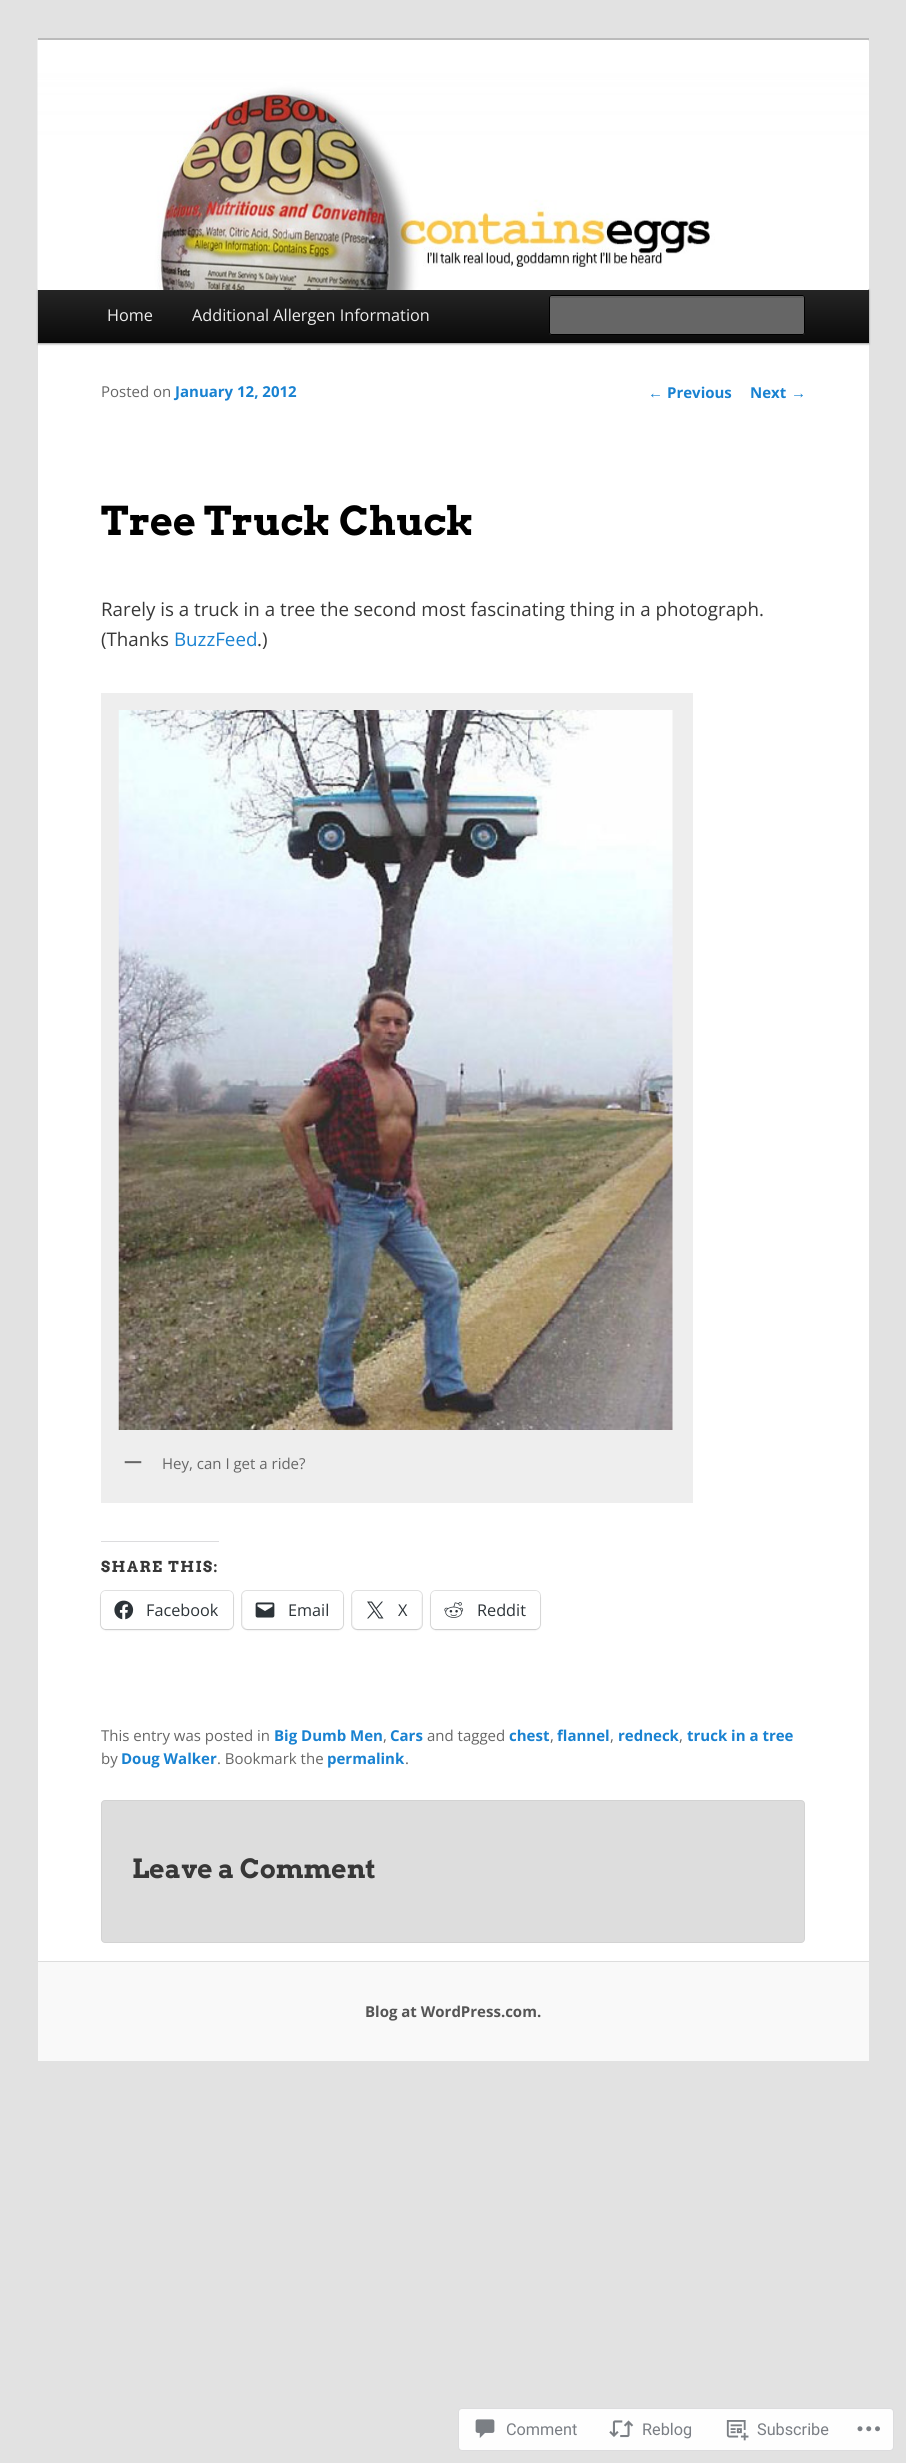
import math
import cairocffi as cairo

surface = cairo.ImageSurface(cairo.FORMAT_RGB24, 906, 2463)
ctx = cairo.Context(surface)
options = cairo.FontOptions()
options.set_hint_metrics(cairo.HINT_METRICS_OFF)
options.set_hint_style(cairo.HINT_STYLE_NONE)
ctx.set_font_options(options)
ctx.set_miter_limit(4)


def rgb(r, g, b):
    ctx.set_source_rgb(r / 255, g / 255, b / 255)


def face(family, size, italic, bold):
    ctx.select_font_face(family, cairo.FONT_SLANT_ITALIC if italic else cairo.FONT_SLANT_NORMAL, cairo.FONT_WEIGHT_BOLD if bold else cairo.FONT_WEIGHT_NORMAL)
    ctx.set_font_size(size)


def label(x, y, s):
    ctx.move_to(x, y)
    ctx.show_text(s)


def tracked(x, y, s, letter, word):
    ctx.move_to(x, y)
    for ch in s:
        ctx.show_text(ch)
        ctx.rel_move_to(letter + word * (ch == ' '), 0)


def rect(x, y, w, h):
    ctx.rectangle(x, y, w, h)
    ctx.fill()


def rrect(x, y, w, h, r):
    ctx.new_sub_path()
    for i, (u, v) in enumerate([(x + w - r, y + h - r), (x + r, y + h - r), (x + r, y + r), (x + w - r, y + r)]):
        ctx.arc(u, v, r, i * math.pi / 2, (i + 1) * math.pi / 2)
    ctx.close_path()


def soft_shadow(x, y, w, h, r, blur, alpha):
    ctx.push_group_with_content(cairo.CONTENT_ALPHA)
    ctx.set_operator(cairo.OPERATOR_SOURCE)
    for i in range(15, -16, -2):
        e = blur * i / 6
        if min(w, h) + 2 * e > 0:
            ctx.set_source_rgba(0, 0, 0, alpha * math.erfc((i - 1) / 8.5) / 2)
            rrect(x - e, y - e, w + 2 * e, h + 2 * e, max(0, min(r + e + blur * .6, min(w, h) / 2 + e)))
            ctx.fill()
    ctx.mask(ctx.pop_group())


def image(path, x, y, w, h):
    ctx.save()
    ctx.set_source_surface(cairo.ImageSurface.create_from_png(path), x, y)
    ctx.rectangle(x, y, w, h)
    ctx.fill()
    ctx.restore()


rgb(226, 226, 226)
ctx.paint()
rgb(255, 255, 255)
rect(38, 41, 831, 1920)
rgb(187, 187, 187)
rect(38, 38, 831, 3)
rgb(0, 0, 0)
soft_shadow(38, 290, 831, 54, 0, 1, 0.4)
gradient = cairo.LinearGradient(453, 289, 453, 343)
gradient.add_color_stop_rgba(0, 0.145, 0.145, 0.145, 1)
gradient.add_color_stop_rgba(1, 0.039, 0.039, 0.039, 1)
ctx.set_source(gradient)
rect(38, 289, 831, 54)
image('image0.png', 37, 40, 832, 250)
face('Open Sans', 16.25, 0, 0)
rgb(238, 238, 238)
label(107, 321, 'Home')
label(192, 321, 'Additional Allergen Information')
rgb(102, 102, 102)
rrect(549, 295, 256, 40, 2.5)
ctx.fill()
rgb(92, 92, 92)
ctx.new_path()
ctx.move_to(551, 298)
ctx.line_to(802, 298)
ctx.curve_to(803, 298, 804, 298, 804, 299)
ctx.curve_to(804, 298, 804, 296, 803, 296)
ctx.line_to(550, 296)
ctx.line_to(550, 299)
ctx.close_path()
ctx.fill()
rrect(549.5, 295.5, 255, 39, 2)
rgb(0, 0, 0)
ctx.set_line_width(1)
ctx.stroke()
face('Open Sans', 15, 0, 0)
rgb(102, 102, 102)
label(101, 397, 'Posted on')
face('Open Sans', 15, 0, 1)
rgb(25, 130, 209)
label(175, 397, 'January 12, 2012')
face('Arvo', 39.6, 0, 1)
rgb(0, 0, 0)
label(101, 535, 'Tree Truck Chuck')
face('Open Sans', 18.75, 0, 0)
rgb(55, 55, 55)
label(101, 616, 'Rarely is a truck in a tree the second most fascinating thing in a photograph.')
label(101, 646, '(Thanks')
rgb(25, 130, 209)
label(174, 646, 'BuzzFeed')
rgb(55, 55, 55)
label(257, 646, '.)')
rgb(238, 238, 238)
rect(101, 693, 592, 810)
image('image1.png', 118, 710, 555, 720)
face('Open Sans', 18, 0, 1)
rgb(102, 102, 102)
label(124, 1467, '—')
face('Open Sans', 15, 0, 0)
label(162, 1469, 'Hey, can I get a ride?')
rgb(220, 220, 222)
rect(101, 1541, 118, 1)
face('Arvo', 15, 0, 1)
rgb(55, 55, 55)
tracked(101, 1572, 'SHARE THIS:', 1.5, 0)
rrect(100.5, 1590.5, 133, 39, 5.5)
rgb(224, 224, 224)
ctx.stroke()
rgb(0, 0, 0)
soft_shadow(101, 1593, 132, 37, 5, 1, 0.12)
rgb(255, 255, 255)
rrect(101, 1591, 132, 38, 5)
ctx.fill()
image('image2.png', 114, 1600, 20, 20)
face('Open Sans', 16.25, 0, 0)
rgb(44, 51, 56)
label(146, 1616, 'Facebook')
rrect(241.5, 1590.5, 102, 39, 5.5)
rgb(224, 224, 224)
ctx.stroke()
rgb(0, 0, 0)
soft_shadow(243, 1593, 100, 37, 5, 1, 0.12)
rgb(255, 255, 255)
rrect(243, 1591, 100, 38, 5)
ctx.fill()
image('image3.png', 255, 1602, 20, 16)
rgb(44, 51, 56)
label(288, 1616, 'Email')
rrect(351.5, 1590.5, 71, 39, 5.5)
rgb(224, 224, 224)
ctx.stroke()
rgb(0, 0, 0)
soft_shadow(353, 1593, 68, 37, 5, 1, 0.12)
rgb(255, 255, 255)
rrect(353, 1591, 68, 38, 5)
ctx.fill()
image('image4.png', 367, 1601, 17, 18)
rgb(44, 51, 56)
label(398, 1616, 'X')
rrect(430.5, 1590.5, 110, 39, 5.5)
rgb(224, 224, 224)
ctx.stroke()
rgb(0, 0, 0)
soft_shadow(431, 1593, 109, 37, 5, 1, 0.12)
rgb(255, 255, 255)
rrect(431, 1591, 109, 38, 5)
ctx.fill()
image('image5.png', 444, 1602, 20, 16)
rgb(44, 51, 56)
label(477, 1616, 'Reddit')
face('Open Sans', 15, 0, 0)
rgb(102, 102, 102)
label(101, 1741, 'This entry was posted in')
face('Open Sans', 15, 0, 1)
rgb(25, 130, 209)
label(274, 1741, 'Big Dumb Men')
face('Open Sans', 15, 0, 0)
rgb(102, 102, 102)
label(383, 1741, ',')
face('Open Sans', 15, 0, 1)
rgb(25, 130, 209)
label(390, 1741, 'Cars')
face('Open Sans', 15, 0, 0)
rgb(102, 102, 102)
label(427, 1741, 'and tagged')
face('Open Sans', 15, 0, 1)
rgb(25, 130, 209)
label(509, 1741, 'chest')
face('Open Sans', 15, 0, 0)
rgb(102, 102, 102)
label(550, 1741, ',')
face('Open Sans', 15, 0, 1)
rgb(25, 130, 209)
label(557, 1741, 'flannel')
face('Open Sans', 15, 0, 0)
rgb(102, 102, 102)
label(610, 1741, ',')
face('Open Sans', 15, 0, 1)
rgb(25, 130, 209)
label(618, 1741, 'redneck')
face('Open Sans', 15, 0, 0)
rgb(102, 102, 102)
label(679, 1741, ',')
face('Open Sans', 15, 0, 1)
rgb(25, 130, 209)
label(687, 1741, 'truck in a tree')
face('Open Sans', 15, 0, 0)
rgb(102, 102, 102)
label(101, 1764, 'by')
face('Open Sans', 15, 0, 1)
rgb(25, 130, 209)
label(121, 1764, 'Doug Walker')
face('Open Sans', 15, 0, 0)
rgb(102, 102, 102)
label(217, 1764, '. Bookmark the')
face('Open Sans', 15, 0, 1)
rgb(25, 130, 209)
label(327, 1764, 'permalink')
face('Open Sans', 15, 0, 0)
rgb(102, 102, 102)
label(405, 1764, '.')
face('Liberation Sans', 15, 0, 0)
rgb(25, 130, 209)
label(648, 398, '←')
face('Open Sans', 15, 0, 1)
label(667, 398, 'Previous')
label(750, 398, 'Next')
face('Liberation Sans', 15, 0, 0)
label(791, 398, '→')
rgb(221, 221, 221)
rrect(101.5, 1800.5, 703, 142, 3.5)
ctx.fill_preserve()
rgb(211, 211, 211)
ctx.stroke()
face('Arvo', 26.4, 0, 1)
rgb(55, 55, 55)
label(132, 1878, 'Leave a Comment')
rgb(249, 249, 249)
rect(38, 1962, 831, 99)
rgb(221, 221, 221)
rect(38, 1961, 831, 1)
face('Open Sans', 15, 0, 1)
rgb(85, 85, 85)
label(365, 2017, 'Blog at WordPress.com.')
rgb(254, 254, 254)
rrect(458.5, 2408.5, 435, 42, 3.5)
ctx.fill_preserve()
rgb(220, 220, 222)
ctx.stroke()
image('image6.png', 475, 2419, 20, 19)
face('Roboto', 16.25, 0, 0)
rgb(122, 126, 132)
label(506, 2435, 'Comment')
image('image7.png', 609, 2420, 25, 18)
label(642, 2435, 'Reblog')
image('image8.png', 726, 2420, 23, 21)
label(757, 2435, 'Subscribe')
image('image9.png', 857, 2426, 23, 6)
surface.write_to_png('render.png')
